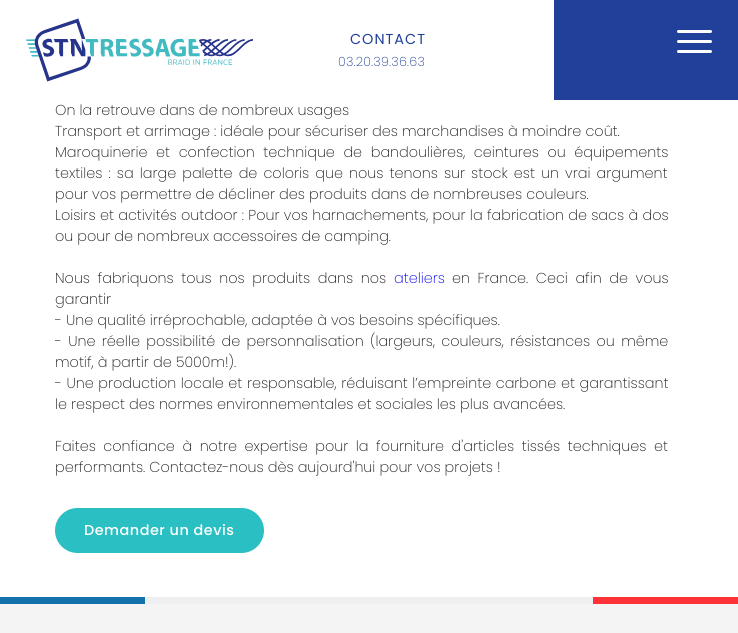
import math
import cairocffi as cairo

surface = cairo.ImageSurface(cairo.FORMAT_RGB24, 738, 633)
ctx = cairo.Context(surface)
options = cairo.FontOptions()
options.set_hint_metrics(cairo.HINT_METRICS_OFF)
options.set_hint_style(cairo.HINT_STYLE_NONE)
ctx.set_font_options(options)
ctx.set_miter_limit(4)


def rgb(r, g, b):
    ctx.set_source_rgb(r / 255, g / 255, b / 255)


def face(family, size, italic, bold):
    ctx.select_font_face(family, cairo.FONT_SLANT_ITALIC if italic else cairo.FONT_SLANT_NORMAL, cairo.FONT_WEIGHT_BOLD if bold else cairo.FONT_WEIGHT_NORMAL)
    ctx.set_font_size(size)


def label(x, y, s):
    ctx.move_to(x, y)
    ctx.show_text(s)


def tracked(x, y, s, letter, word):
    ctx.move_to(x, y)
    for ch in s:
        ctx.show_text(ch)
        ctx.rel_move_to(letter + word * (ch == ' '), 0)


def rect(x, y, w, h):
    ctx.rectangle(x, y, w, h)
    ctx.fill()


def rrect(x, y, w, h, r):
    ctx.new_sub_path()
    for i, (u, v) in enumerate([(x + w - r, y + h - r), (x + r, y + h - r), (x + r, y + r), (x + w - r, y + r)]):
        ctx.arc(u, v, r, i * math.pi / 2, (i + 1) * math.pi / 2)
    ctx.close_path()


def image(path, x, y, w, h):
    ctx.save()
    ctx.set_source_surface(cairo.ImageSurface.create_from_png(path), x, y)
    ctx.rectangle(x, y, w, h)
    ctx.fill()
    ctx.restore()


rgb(255, 255, 255)
ctx.paint()
image('image0.png', 26, 18, 227, 64)
face('Poppins', 14.4, 0, 0)
rgb(32, 64, 153)
tracked(350, 44, 'CONTACT', 1, 0)
face('Poppins ExtraLight', 12.75, 0, 0)
tracked(338, 66, '03.20.39.36.63', 0.25, 0)
rect(554, 0, 184, 100)
rgb(255, 255, 255)
rrect(677, 30, 35, 3, 1.5)
ctx.fill()
rrect(677, 40, 35, 3, 1.5)
ctx.fill()
rrect(677, 50, 35, 3, 1.5)
ctx.fill()
face('Poppins ExtraLight', 14.4, 0, 0)
rgb(25, 25, 25)
label(55, 115, 'On la retrouve dans de nombreux usages')
label(55, 136, 'Transport et arrimage : idéale pour sécuriser des marchandises à moindre coût.')
tracked(55, 157, 'Maroquinerie et confection technique de bandoulières, ceintures ou équipements', 0, 4.5)
tracked(55, 178, 'textiles : sa large palette de coloris que nous tenons sur stock est un vrai argument', 0, 2)
label(55, 199, 'pour vos permettre de décliner des produits dans de nombreuses couleurs.')
tracked(55, 220, 'Loisirs et activités outdoor : Pour vos harnachements, pour la fabrication de sacs à dos', 0, 0.25)
label(55, 241, 'ou pour de nombreux accessoires de camping.')
tracked(55, 283, 'Nous fabriquons tous nos produits dans nos', 0, 3.5)
rgb(0, 0, 238)
label(394, 283, 'ateliers')
rgb(25, 25, 25)
tracked(452, 283, 'en France. Ceci afin de vous', 0, 3.5)
label(55, 304, 'garantir')
label(55, 325, '- Une qualité irréprochable, adaptée à vos besoins spécifiques.')
tracked(55, 346, '- Une réelle possibilité de personnalisation (largeurs, couleurs, résistances ou même', 0, 2.25)
label(55, 367, 'motif, à partir de 5000m!).')
tracked(55, 388, '- Une production locale et responsable, réduisant l’empreinte carbone et garantissant', 0, 0.5)
label(55, 409, 'le respect des normes environnementales et sociales les plus avancées.')
tracked(55, 451, 'Faites confiance à notre expertise pour la fourniture d\'articles tissés techniques et', 0, 3.5)
label(55, 472, 'performants. Contactez-nous dès aujourd\'hui pour vos projets !')
rgb(42, 191, 194)
rrect(55, 508, 209, 45, 22.5)
ctx.fill()
face('Poppins Medium', 14.4, 0, 0)
rgb(255, 255, 255)
tracked(84, 535, 'Demander un devis', 0.5, 0)
rgb(244, 244, 244)
rect(0, 604, 738, 29)
rgb(19, 114, 170)
rect(0, 597, 145, 7)
rgb(237, 239, 240)
rect(145, 597, 448, 7)
rgb(252, 50, 55)
rect(593, 597, 145, 7)
surface.write_to_png('render.png')
